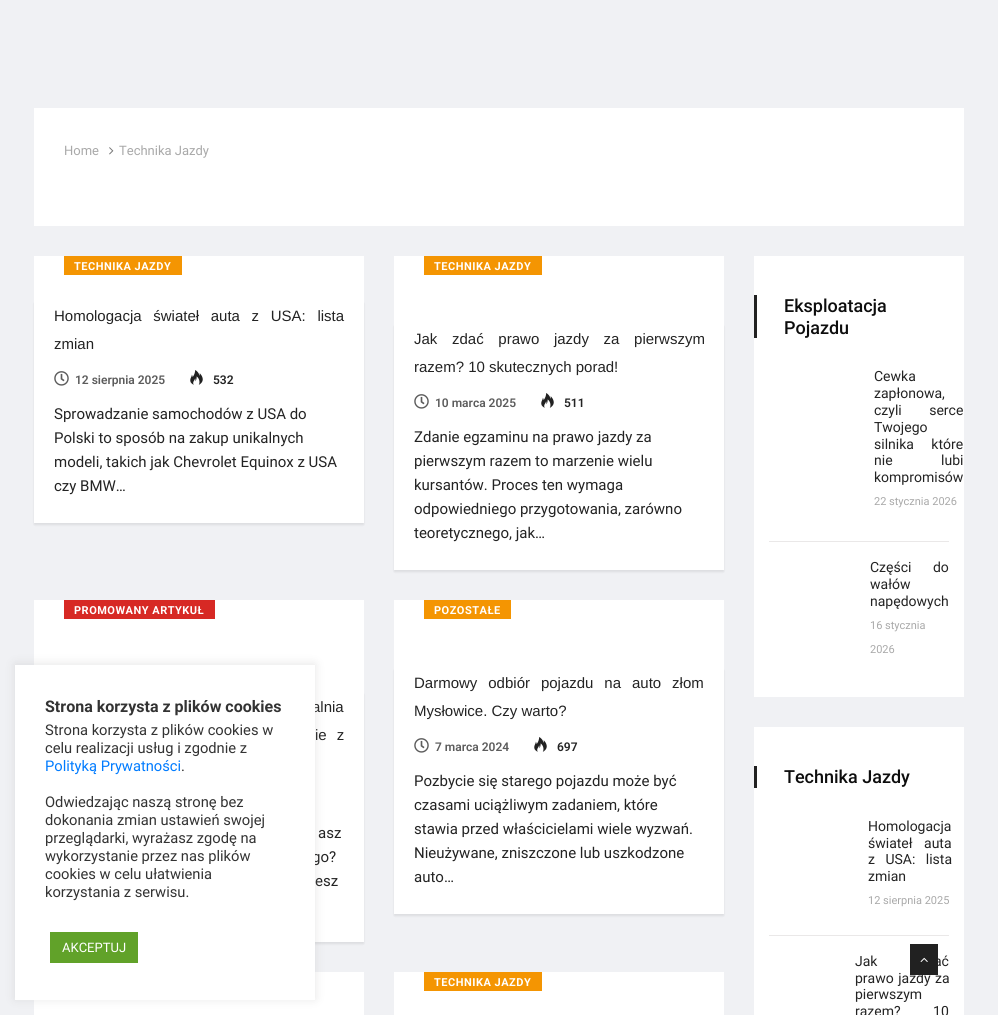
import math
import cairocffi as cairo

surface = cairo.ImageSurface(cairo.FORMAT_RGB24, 998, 1015)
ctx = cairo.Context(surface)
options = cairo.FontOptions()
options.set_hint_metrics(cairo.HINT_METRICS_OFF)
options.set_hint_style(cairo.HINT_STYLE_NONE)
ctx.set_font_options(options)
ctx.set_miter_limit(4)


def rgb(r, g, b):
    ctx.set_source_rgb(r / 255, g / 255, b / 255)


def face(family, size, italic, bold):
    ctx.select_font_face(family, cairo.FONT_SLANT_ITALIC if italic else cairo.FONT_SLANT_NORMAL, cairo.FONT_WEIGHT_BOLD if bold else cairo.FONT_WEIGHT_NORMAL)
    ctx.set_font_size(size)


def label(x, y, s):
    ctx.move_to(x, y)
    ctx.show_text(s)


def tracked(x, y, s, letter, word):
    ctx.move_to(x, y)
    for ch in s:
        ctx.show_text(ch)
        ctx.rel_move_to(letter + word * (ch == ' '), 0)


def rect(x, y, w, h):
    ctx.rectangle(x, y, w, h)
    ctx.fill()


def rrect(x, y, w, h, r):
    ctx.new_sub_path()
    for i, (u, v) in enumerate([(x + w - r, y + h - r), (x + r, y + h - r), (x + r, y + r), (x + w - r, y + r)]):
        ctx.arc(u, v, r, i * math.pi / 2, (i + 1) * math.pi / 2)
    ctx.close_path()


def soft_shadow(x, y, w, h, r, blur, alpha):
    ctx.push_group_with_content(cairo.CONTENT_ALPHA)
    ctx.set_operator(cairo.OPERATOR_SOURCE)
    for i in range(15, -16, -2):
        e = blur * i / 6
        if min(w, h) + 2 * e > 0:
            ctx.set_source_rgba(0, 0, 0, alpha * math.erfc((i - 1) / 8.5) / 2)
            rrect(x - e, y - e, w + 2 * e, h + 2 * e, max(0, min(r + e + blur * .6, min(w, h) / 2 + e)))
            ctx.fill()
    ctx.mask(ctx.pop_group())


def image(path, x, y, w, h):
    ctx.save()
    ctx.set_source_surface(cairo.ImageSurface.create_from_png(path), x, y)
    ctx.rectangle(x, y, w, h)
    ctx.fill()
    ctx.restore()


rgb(240, 241, 244)
ctx.paint()
rgb(255, 255, 255)
rect(34, 108, 930, 118)
face('Roboto', 13, 0, 0)
rgb(169, 169, 169)
label(64, 155, 'Home')
image('image0.png', 109, 147, 5, 8)
label(119, 155, 'Technika Jazdy')
rgb(255, 255, 255)
rect(34, 256, 330, 267)
rgb(244, 149, 2)
rect(64, 256, 118, 19)
face('Roboto', 11, 0, 1)
rgb(255, 255, 255)
tracked(74, 270, 'TECHNIKA JAZDY', 0.5, 0)
ctx.save()
ctx.set_fill_rule(cairo.FILL_RULE_EVEN_ODD)
ctx.new_path()
ctx.move_to(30, 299)
ctx.line_to(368, 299)
ctx.line_to(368, 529)
ctx.line_to(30, 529)
ctx.close_path()
ctx.move_to(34, 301)
ctx.line_to(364, 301)
ctx.line_to(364, 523)
ctx.line_to(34, 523)
ctx.close_path()
ctx.clip()
rgb(0, 0, 0)
soft_shadow(34, 303, 330, 222, 0, 1, 0.08)
ctx.restore()
face('Liberation Sans', 15, 0, 0)
rgb(35, 35, 35)
tracked(54, 321, 'Homologacja świateł auta z USA: lista', 0, 7.5)
label(54, 349, 'zmian')
image('image1.png', 54, 371, 15, 15)
face('Roboto SemiBold', 12, 0, 0)
rgb(92, 92, 92)
label(75, 384, '12 sierpnia 2025')
image('image2.png', 190, 370, 13, 15)
rgb(35, 35, 35)
label(213, 384, '532')
face('Roboto', 15, 0, 0)
label(54, 419, 'Sprowadzanie samochodów z USA do')
label(54, 443, 'Polski to sposób na zakup unikalnych')
label(54, 467, 'modeli, takich jak Chevrolet Equinox z USA')
label(54, 491, 'czy BMW…')
rgb(255, 255, 255)
rect(394, 256, 330, 314)
rgb(244, 149, 2)
rect(424, 256, 118, 19)
face('Roboto', 11, 0, 1)
rgb(255, 255, 255)
tracked(434, 270, 'TECHNIKA JAZDY', 0.5, 0)
ctx.save()
ctx.set_fill_rule(cairo.FILL_RULE_EVEN_ODD)
ctx.new_path()
ctx.move_to(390, 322)
ctx.line_to(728, 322)
ctx.line_to(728, 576)
ctx.line_to(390, 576)
ctx.close_path()
ctx.move_to(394, 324)
ctx.line_to(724, 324)
ctx.line_to(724, 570)
ctx.line_to(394, 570)
ctx.close_path()
ctx.clip()
rgb(0, 0, 0)
soft_shadow(394, 326, 330, 246, 0, 1, 0.08)
ctx.restore()
face('Liberation Sans', 15, 0, 0)
rgb(35, 35, 35)
tracked(414, 344, 'Jak zdać prawo jazdy za pierwszym', 0, 10.5)
label(414, 372, 'razem? 10 skutecznych porad!')
image('image1.png', 414, 394, 15, 15)
face('Roboto SemiBold', 12, 0, 0)
rgb(92, 92, 92)
label(435, 407, '10 marca 2025')
image('image2.png', 541, 393, 13, 15)
rgb(35, 35, 35)
label(564, 407, '511')
face('Roboto', 15, 0, 0)
label(414, 442, 'Zdanie egzaminu na prawo jazdy za')
label(414, 466, 'pierwszym razem to marzenie wielu')
label(414, 490, 'kursantów. Proces ten wymaga')
label(414, 514, 'odpowiedniego przygotowania, zarówno')
label(414, 538, 'teoretycznego, jak…')
rgb(255, 255, 255)
rect(34, 600, 330, 342)
rgb(215, 41, 36)
rect(64, 600, 151, 19)
face('Roboto', 11, 0, 1)
rgb(255, 255, 255)
tracked(74, 614, 'PROMOWANY ARTYKUŁ', 0.5, 0)
ctx.save()
ctx.set_fill_rule(cairo.FILL_RULE_EVEN_ODD)
ctx.new_path()
ctx.move_to(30, 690)
ctx.line_to(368, 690)
ctx.line_to(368, 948)
ctx.line_to(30, 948)
ctx.close_path()
ctx.move_to(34, 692)
ctx.line_to(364, 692)
ctx.line_to(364, 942)
ctx.line_to(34, 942)
ctx.close_path()
ctx.clip()
rgb(0, 0, 0)
soft_shadow(34, 694, 330, 250, 0, 1, 0.08)
ctx.restore()
face('Liberation Sans', 15, 0, 0)
rgb(35, 35, 35)
tracked(312, 712, 'alnia', 0, 1)
tracked(315, 740, 'ie z', 0, 6)
face('Roboto', 15, 0, 0)
label(318, 838, 'asz')
label(312, 862, 'go?')
label(315, 886, 'esz')
rgb(255, 255, 255)
rect(394, 600, 330, 314)
rgb(244, 149, 2)
rect(424, 600, 87, 19)
face('Roboto', 11, 0, 1)
rgb(255, 255, 255)
tracked(434, 614, 'POZOSTAŁE', 0.5, 0)
ctx.save()
ctx.set_fill_rule(cairo.FILL_RULE_EVEN_ODD)
ctx.new_path()
ctx.move_to(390, 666)
ctx.line_to(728, 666)
ctx.line_to(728, 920)
ctx.line_to(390, 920)
ctx.close_path()
ctx.move_to(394, 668)
ctx.line_to(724, 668)
ctx.line_to(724, 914)
ctx.line_to(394, 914)
ctx.close_path()
ctx.clip()
rgb(0, 0, 0)
soft_shadow(394, 670, 330, 246, 0, 1, 0.08)
ctx.restore()
face('Liberation Sans', 15, 0, 0)
rgb(35, 35, 35)
tracked(414, 688, 'Darmowy odbiór pojazdu na auto złom', 0, 6.75)
label(414, 716, 'Mysłowice. Czy warto?')
image('image1.png', 414, 738, 15, 15)
face('Roboto SemiBold', 12, 0, 0)
rgb(92, 92, 92)
label(435, 751, '7 marca 2024')
image('image2.png', 534, 737, 13, 15)
rgb(35, 35, 35)
label(557, 751, '697')
face('Roboto', 15, 0, 0)
label(414, 786, 'Pozbycie się starego pojazdu może być')
label(414, 810, 'czasami uciążliwym zadaniem, które')
label(414, 834, 'stawia przed właścicielami wiele wyzwań.')
label(414, 858, 'Nieużywane, zniszczone lub uszkodzone')
label(414, 882, 'auto…')
rgb(255, 255, 255)
rect(34, 972, 330, 43)
rect(394, 972, 330, 43)
rgb(244, 149, 2)
rect(424, 972, 118, 19)
face('Roboto', 11, 0, 1)
rgb(255, 255, 255)
tracked(434, 986, 'TECHNIKA JAZDY', 0.5, 0)
rect(754, 256, 210, 441)
rgb(33, 33, 33)
rect(754, 295, 3, 43)
face('Roboto Medium', 18, 0, 0)
rgb(13, 13, 13)
label(784, 312, 'Eksploatacja')
label(784, 334, 'Pojazdu')
rgb(234, 232, 232)
rect(769, 541, 180, 1)
face('Roboto', 14, 0, 0)
rgb(35, 35, 35)
label(874, 381, 'Cewka')
label(874, 398, 'zapłonowa,')
tracked(874, 415, 'czyli serce', 0, 24)
label(874, 432, 'Twojego')
tracked(874, 449, 'silnika które', 0, 14)
tracked(874, 465, 'nie lubi', 0, 45)
label(874, 482, 'kompromisów')
face('Roboto', 11, 0, 0)
rgb(169, 169, 169)
label(874, 505, '22 stycznia 2026')
face('Roboto', 14, 0, 0)
rgb(35, 35, 35)
tracked(870, 572, 'Części do', 0, 18)
label(870, 589, 'wałów')
label(870, 606, 'napędowych')
face('Roboto', 11, 0, 0)
rgb(169, 169, 169)
label(870, 629, '16 stycznia')
label(870, 653, '2026')
rgb(255, 255, 255)
rect(754, 727, 210, 288)
rgb(33, 33, 33)
rect(754, 766, 3, 22)
face('Roboto Medium', 18, 0, 0)
rgb(13, 13, 13)
label(784, 783, 'Technika Jazdy')
rgb(234, 232, 232)
rect(769, 935, 180, 1)
face('Roboto', 14, 0, 0)
rgb(35, 35, 35)
label(868, 831, 'Homologacja')
tracked(868, 848, 'świateł auta', 0, 8)
tracked(868, 864, 'z USA: lista', 0, 7)
label(868, 881, 'zmian')
face('Roboto', 11, 0, 0)
rgb(169, 169, 169)
label(868, 904, '12 sierpnia 2025')
face('Roboto', 14, 0, 0)
rgb(35, 35, 35)
tracked(855, 966, 'Jak', 0, 38)
tracked(934, 966, 'ać', 0, 38)
tracked(855, 983, 'prawo jazdy za', 0, 1)
label(855, 999, 'pierwszym')
tracked(855, 1016, 'razem? 10', 0, 29)
rgb(172, 171, 171)
soft_shadow(15, 664, 300, 335, 0, 5, 0.3)
rgb(255, 255, 255)
rect(15, 665, 300, 335)
face('Roboto', 16, 0, 1)
rgb(51, 51, 51)
label(45, 712, 'Strona korzysta z plików cookies')
face('Roboto', 14.7, 0, 0)
label(45, 735, 'Strona korzysta z plików cookies w')
label(45, 753, 'celu realizacji usług i zgodnie z')
rgb(0, 123, 255)
label(45, 771, 'Polityką Prywatności')
rgb(51, 51, 51)
label(181, 771, '.')
label(45, 807, 'Odwiedzając naszą stronę bez')
label(45, 825, 'dokonania zmian ustawień swojej')
label(45, 843, 'przeglądarki, wyrażasz zgodę na')
label(45, 861, 'wykorzystanie przez nas plików')
label(45, 879, 'cookies w celu ułatwienia')
label(45, 897, 'korzystania z serwisu.')
rgb(97, 162, 41)
rect(50, 932, 88, 31)
face('Roboto', 13, 0, 0)
rgb(255, 255, 255)
label(62, 952, 'AKCEPTUJ')
rgb(33, 33, 33)
rect(910, 944, 28, 31)
image('image3.png', 920, 957, 8, 5)
surface.write_to_png('render.png')
